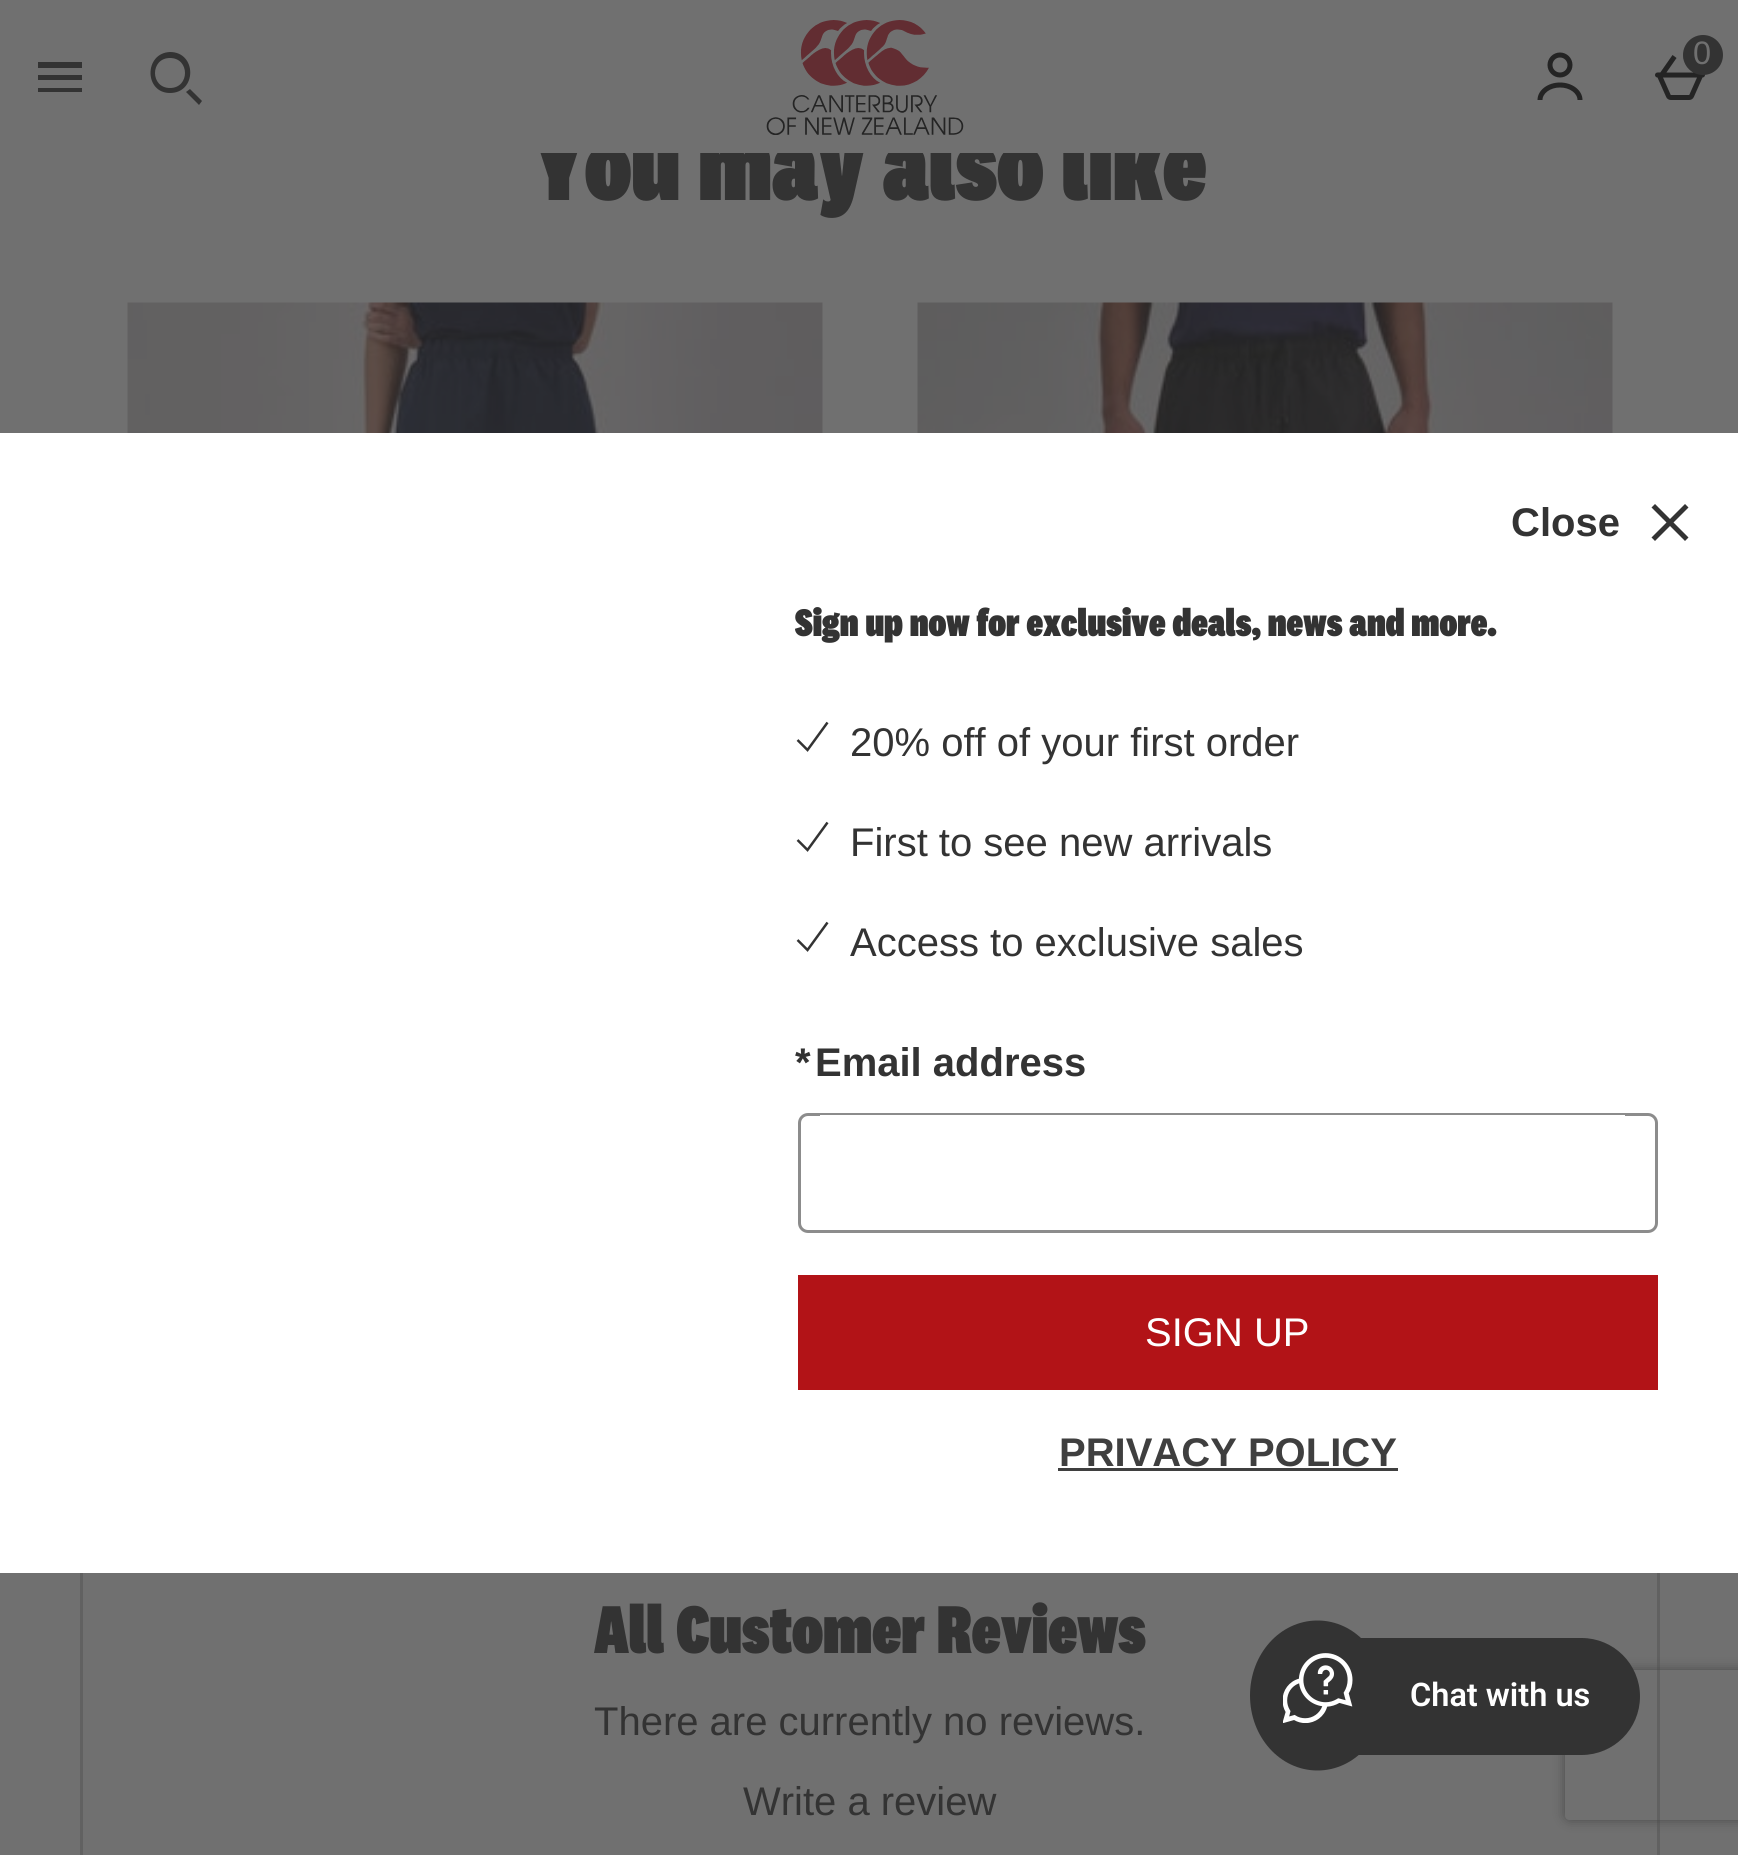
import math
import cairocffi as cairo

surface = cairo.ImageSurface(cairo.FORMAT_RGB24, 1738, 1855)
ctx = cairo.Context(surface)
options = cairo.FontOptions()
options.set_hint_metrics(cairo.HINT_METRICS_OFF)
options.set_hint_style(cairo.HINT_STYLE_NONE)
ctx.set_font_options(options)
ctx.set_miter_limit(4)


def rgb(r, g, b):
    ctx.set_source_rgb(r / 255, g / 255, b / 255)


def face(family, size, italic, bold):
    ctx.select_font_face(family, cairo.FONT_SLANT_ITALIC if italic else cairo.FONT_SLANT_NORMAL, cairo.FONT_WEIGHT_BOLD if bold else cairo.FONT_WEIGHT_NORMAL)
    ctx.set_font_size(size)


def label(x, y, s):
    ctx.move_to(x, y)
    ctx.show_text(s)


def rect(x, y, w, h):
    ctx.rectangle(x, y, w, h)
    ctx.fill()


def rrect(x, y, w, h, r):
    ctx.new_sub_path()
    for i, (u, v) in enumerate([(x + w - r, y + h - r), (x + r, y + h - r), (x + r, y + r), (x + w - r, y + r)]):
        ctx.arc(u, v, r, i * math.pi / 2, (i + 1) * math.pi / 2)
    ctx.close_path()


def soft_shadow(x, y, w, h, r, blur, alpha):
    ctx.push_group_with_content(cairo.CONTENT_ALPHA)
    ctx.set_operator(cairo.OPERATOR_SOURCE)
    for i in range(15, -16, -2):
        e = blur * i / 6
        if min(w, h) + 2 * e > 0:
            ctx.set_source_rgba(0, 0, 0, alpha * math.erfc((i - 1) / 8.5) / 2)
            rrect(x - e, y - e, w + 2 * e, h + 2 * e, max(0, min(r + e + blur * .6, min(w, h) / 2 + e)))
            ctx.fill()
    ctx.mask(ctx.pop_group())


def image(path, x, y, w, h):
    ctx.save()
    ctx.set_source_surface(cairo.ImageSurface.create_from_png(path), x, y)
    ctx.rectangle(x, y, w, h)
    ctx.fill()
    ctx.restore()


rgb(112, 112, 112)
ctx.paint()
face('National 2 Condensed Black', 105, 0, 0)
rgb(51, 51, 51)
label(533, 200, 'You may also like')
rgb(112, 112, 112)
rect(533, 124, 669, 29)
rgb(51, 51, 51)
ctx.new_path()
ctx.move_to(38, 75)
ctx.line_to(82, 75)
ctx.line_to(82, 80)
ctx.line_to(38, 80)
ctx.close_path()
ctx.move_to(38, 62)
ctx.line_to(82, 62)
ctx.line_to(82, 68)
ctx.line_to(38, 68)
ctx.close_path()
ctx.move_to(38, 88)
ctx.line_to(82, 88)
ctx.line_to(82, 92)
ctx.line_to(38, 92)
ctx.close_path()
ctx.fill()
ctx.new_path()
ctx.move_to(170, 88)
ctx.curve_to(190, 88, 190, 58, 170, 58)
ctx.curve_to(150, 58, 150, 88, 170, 88)
ctx.close_path()
ctx.move_to(170, 93)
ctx.curve_to(144, 93, 144, 53, 170, 52)
ctx.curve_to(197, 52, 197, 93, 170, 93)
ctx.close_path()
ctx.move_to(202, 101)
ctx.line_to(199, 105)
ctx.line_to(186, 92)
ctx.line_to(190, 89)
ctx.close_path()
ctx.fill()
image('image0.png', 766, 20, 198, 115)
image('image1.png', 1537, 52, 46, 48)
image('image2.png', 1655, 55, 50, 45)
ctx.arc(1703, 55, 20, 0, 2 * math.pi)
ctx.fill()
face('Liberation Sans', 32.5, 0, 0)
rgb(112, 112, 112)
label(1693, 64, '0')
image('image3.png', 127, 302, 696, 131)
image('image4.png', 917, 302, 696, 131)
ctx.rectangle(81.5, 1501.5, 1577, 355)
rgb(97, 97, 97)
ctx.set_line_width(3)
ctx.stroke()
face('National 2 Condensed Black', 70, 0, 0)
rgb(51, 51, 51)
label(594, 1653, 'All Customer Reviews')
face('Liberation Sans', 40, 0, 0)
label(594, 1735, 'There are currently no reviews.')
label(743, 1815, 'Write a review')
rgb(255, 255, 255)
rect(0, 433, 1738, 1140)
face('Liberation Sans', 40, 0, 1)
rgb(51, 51, 51)
label(1511, 536, 'Close')
ctx.new_path()
ctx.move_to(1685, 504)
ctx.line_to(1688.5, 507.5)
ctx.line_to(1673.5, 522.5)
ctx.line_to(1688.5, 537.5)
ctx.line_to(1685, 541)
ctx.line_to(1670, 526)
ctx.line_to(1655, 541)
ctx.line_to(1651.5, 537.5)
ctx.line_to(1666.5, 522.5)
ctx.line_to(1651.5, 507.5)
ctx.line_to(1655, 504)
ctx.line_to(1670, 519)
ctx.close_path()
ctx.fill()
face('National 2 Condensed Black', 40, 0, 0)
label(795, 636, 'Sign up now for exclusive deals, news and more.')
ctx.new_path()
ctx.move_to(797.5, 740)
ctx.line_to(807.5, 750)
ctx.line_to(827.5, 722.5)
ctx.set_line_width(2.5)
ctx.stroke()
face('Liberation Sans', 40, 0, 0)
label(850, 756, '20% off of your first order')
ctx.new_path()
ctx.move_to(797.5, 840)
ctx.line_to(807.5, 850)
ctx.line_to(827.5, 822.5)
ctx.stroke()
label(850, 856, 'First to see new arrivals')
ctx.new_path()
ctx.move_to(797.5, 940)
ctx.line_to(807.5, 950)
ctx.line_to(827.5, 922.5)
ctx.stroke()
label(850, 956, 'Access to exclusive sales')
face('Liberation Sans', 40, 0, 1)
label(795, 1076, '*')
label(815, 1076, 'Email address')
rrect(799.5, 1114.5, 857, 117, 8.5)
rgb(140, 140, 140)
ctx.set_line_width(3)
ctx.stroke()
rgb(255, 255, 255)
rect(820, 1115, 805, 1)
rgb(178, 19, 23)
rect(798, 1275, 860, 115)
face('Liberation Sans', 40, 0, 0)
rgb(255, 255, 255)
label(1145, 1346, 'SIGN UP')
face('Liberation Sans', 40, 0, 1)
rgb(63, 63, 63)
label(1059, 1466, 'PRIVACY POLICY')
rect(1058, 1468, 340, 3)
ctx.save()
ctx.set_fill_rule(cairo.FILL_RULE_EVEN_ODD)
ctx.new_path()
ctx.move_to(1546, 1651)
ctx.line_to(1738, 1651)
ctx.line_to(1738, 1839)
ctx.line_to(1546, 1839)
ctx.close_path()
ctx.move_to(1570, 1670)
ctx.line_to(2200, 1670)
ctx.curve_to(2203, 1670, 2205, 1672, 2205, 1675)
ctx.line_to(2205, 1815)
ctx.curve_to(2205, 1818, 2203, 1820, 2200, 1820)
ctx.line_to(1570, 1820)
ctx.curve_to(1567, 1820, 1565, 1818, 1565, 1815)
ctx.line_to(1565, 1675)
ctx.curve_to(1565, 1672, 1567, 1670, 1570, 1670)
ctx.close_path()
ctx.clip()
rgb(74, 74, 74)
soft_shadow(1565, 1670, 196, 150, 5, 6, 1)
ctx.restore()
rgb(51, 51, 51)
rrect(1275, 1638, 365, 117, 58.5)
ctx.fill()
ctx.new_path()
ctx.move_to(1317.5, 1620.5)
ctx.curve_to(1355, 1620.5, 1385, 1654, 1385, 1695.5)
ctx.curve_to(1385, 1737, 1355, 1770.5, 1317.5, 1770.5)
ctx.curve_to(1280, 1770.5, 1250, 1737, 1250, 1695.5)
ctx.curve_to(1250, 1654, 1280, 1620.5, 1317.5, 1620.5)
ctx.close_path()
ctx.fill()
image('image5.png', 1283, 1653, 70, 70)
face('Roboto SemiBold', 32.5, 0, 0)
rgb(255, 255, 255)
label(1410, 1706, 'Chat with us')
surface.write_to_png('render.png')
